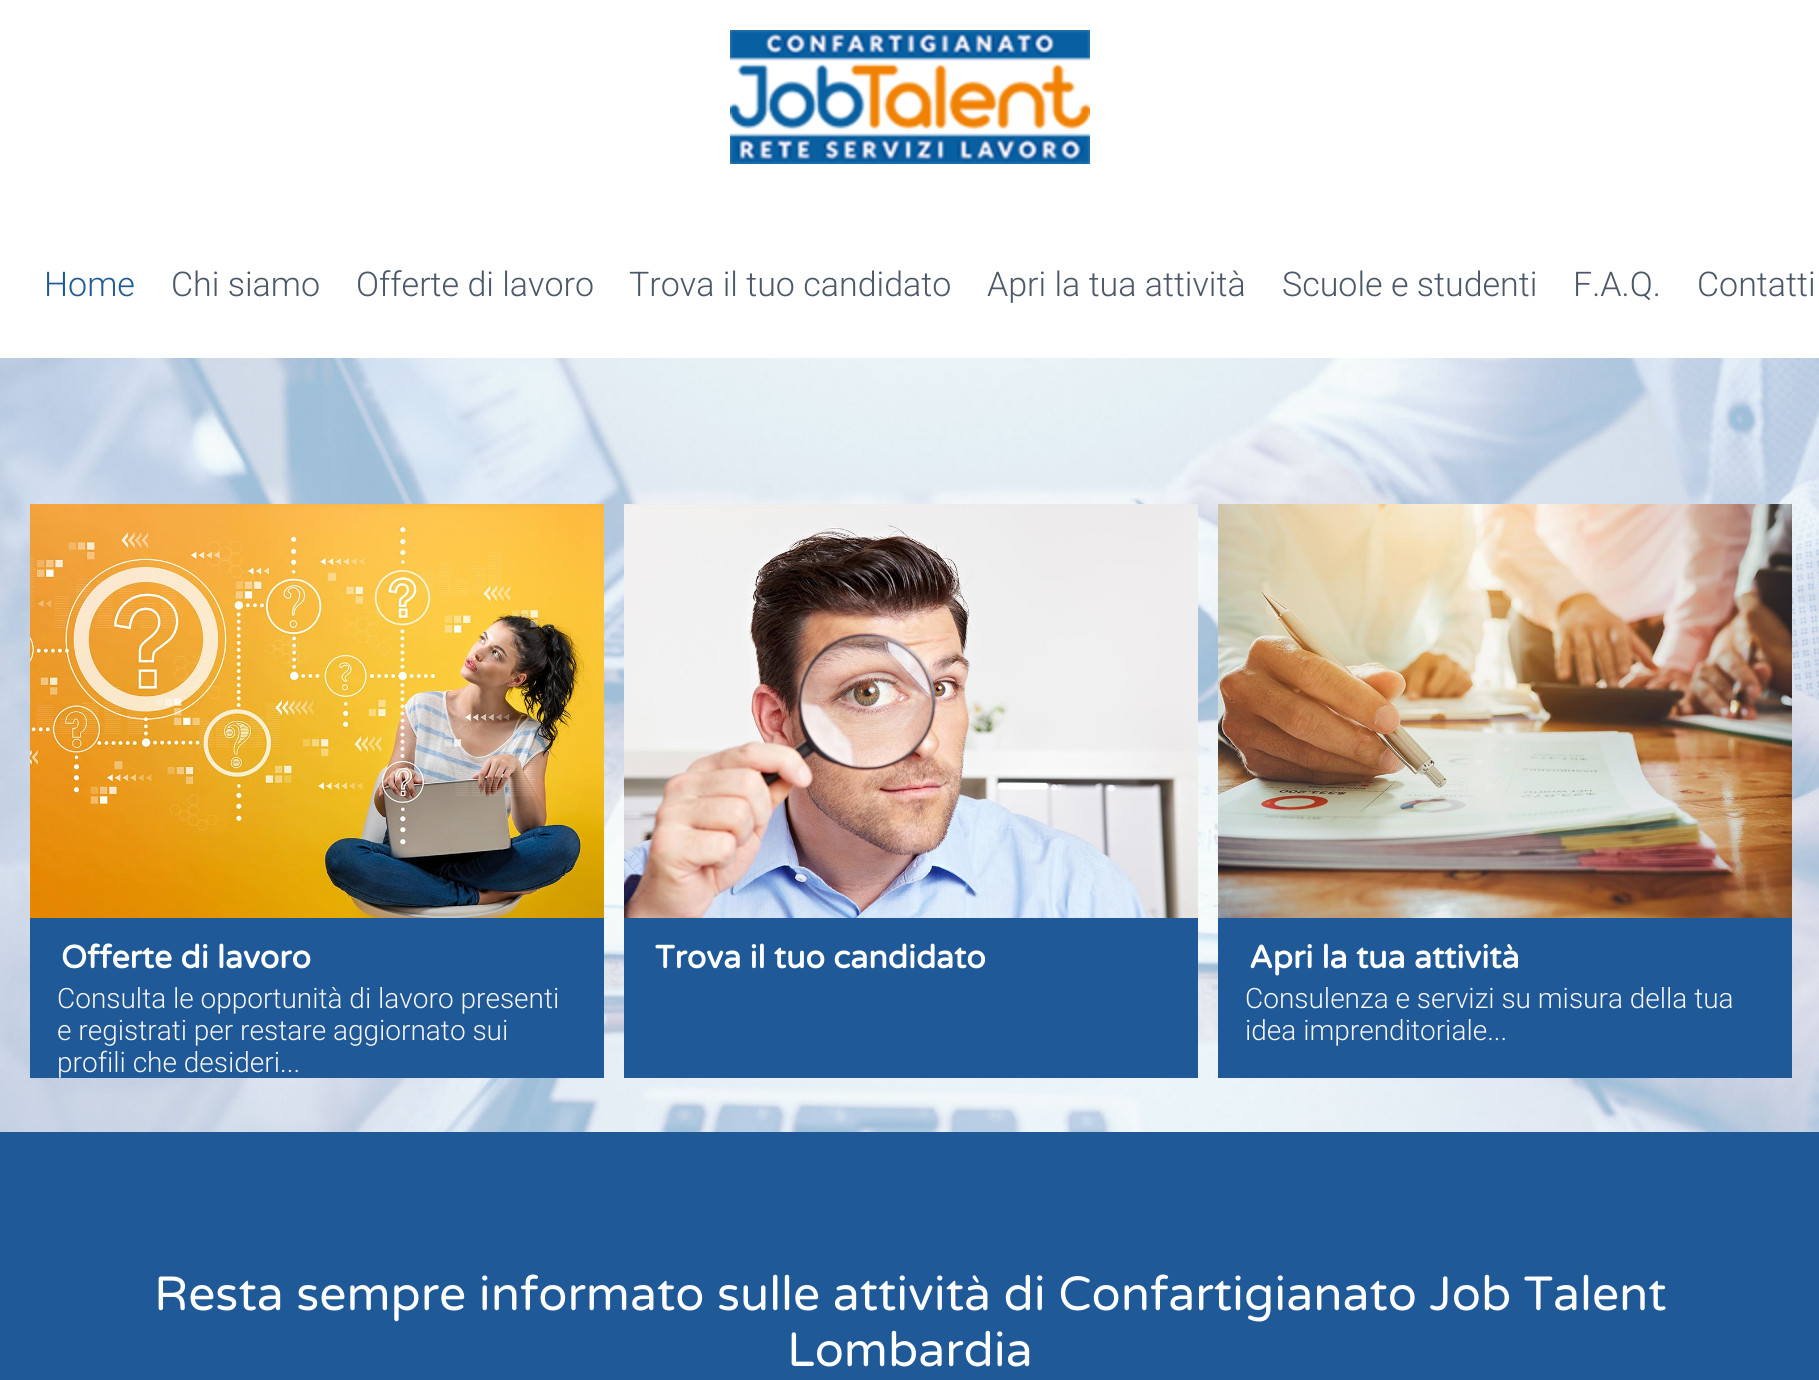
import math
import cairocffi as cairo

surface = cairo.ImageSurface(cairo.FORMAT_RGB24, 1819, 1380)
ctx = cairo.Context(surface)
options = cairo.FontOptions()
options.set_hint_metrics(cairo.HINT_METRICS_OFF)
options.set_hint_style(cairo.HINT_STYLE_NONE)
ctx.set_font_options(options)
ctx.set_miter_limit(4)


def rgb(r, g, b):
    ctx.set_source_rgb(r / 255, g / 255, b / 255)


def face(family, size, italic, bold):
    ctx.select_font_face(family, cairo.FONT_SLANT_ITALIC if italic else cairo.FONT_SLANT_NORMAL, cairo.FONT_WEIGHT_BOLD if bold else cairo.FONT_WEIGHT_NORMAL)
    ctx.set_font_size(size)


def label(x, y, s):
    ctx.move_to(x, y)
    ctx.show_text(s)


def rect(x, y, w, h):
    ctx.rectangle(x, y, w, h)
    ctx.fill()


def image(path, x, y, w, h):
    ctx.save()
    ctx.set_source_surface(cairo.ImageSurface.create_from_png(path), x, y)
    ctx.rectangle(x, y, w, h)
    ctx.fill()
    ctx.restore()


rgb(255, 255, 255)
ctx.paint()
image('image0.png', 730, 30, 360, 134)
face('Roboto Light', 34, 0, 0)
rgb(32, 89, 151)
label(44, 296, 'Home')
rgb(76, 88, 103)
label(171, 296, 'Chi siamo')
label(356, 296, 'Offerte di lavoro')
label(629, 296, 'Trova il tuo candidato')
label(987, 296, 'Apri la tua attività')
label(1282, 296, 'Scuole e studenti')
label(1573, 296, 'F.A.Q.')
label(1697, 296, 'Contatti')
image('image1.png', 0, 358, 1819, 774)
image('image2.png', 30, 504, 574, 414)
rgb(32, 89, 151)
rect(30, 918, 574, 160)
face('Varela Round', 32, 0, 1)
rgb(255, 255, 255)
label(61, 968, 'Offerte di lavoro')
face('Roboto Light', 28, 0, 0)
rgb(245, 245, 245)
label(57, 1008, 'Consulta le opportunità di lavoro presenti')
label(57, 1040, 'e registrati per restare aggiornato sui')
label(57, 1072, 'profili che desideri...')
image('image3.png', 624, 504, 574, 414)
rgb(32, 89, 151)
rect(624, 918, 574, 160)
face('Varela Round', 32, 0, 1)
rgb(255, 255, 255)
label(655, 968, 'Trova il tuo candidato')
image('image4.png', 1218, 504, 574, 414)
rgb(32, 89, 151)
rect(1218, 918, 574, 160)
rgb(255, 255, 255)
label(1249, 968, 'Apri la tua attività')
face('Roboto Light', 28, 0, 0)
rgb(245, 245, 245)
label(1245, 1008, 'Consulenza e servizi su misura della tua')
label(1245, 1040, 'idea imprenditoriale...')
rgb(32, 89, 151)
rect(0, 1132, 1819, 248)
face('Varela Round', 48, 0, 0)
rgb(255, 255, 255)
label(154, 1310, 'Resta sempre informato sulle attività di Confartigianato Job Talent')
label(787, 1366, 'Lombardia')
surface.write_to_png('render.png')
